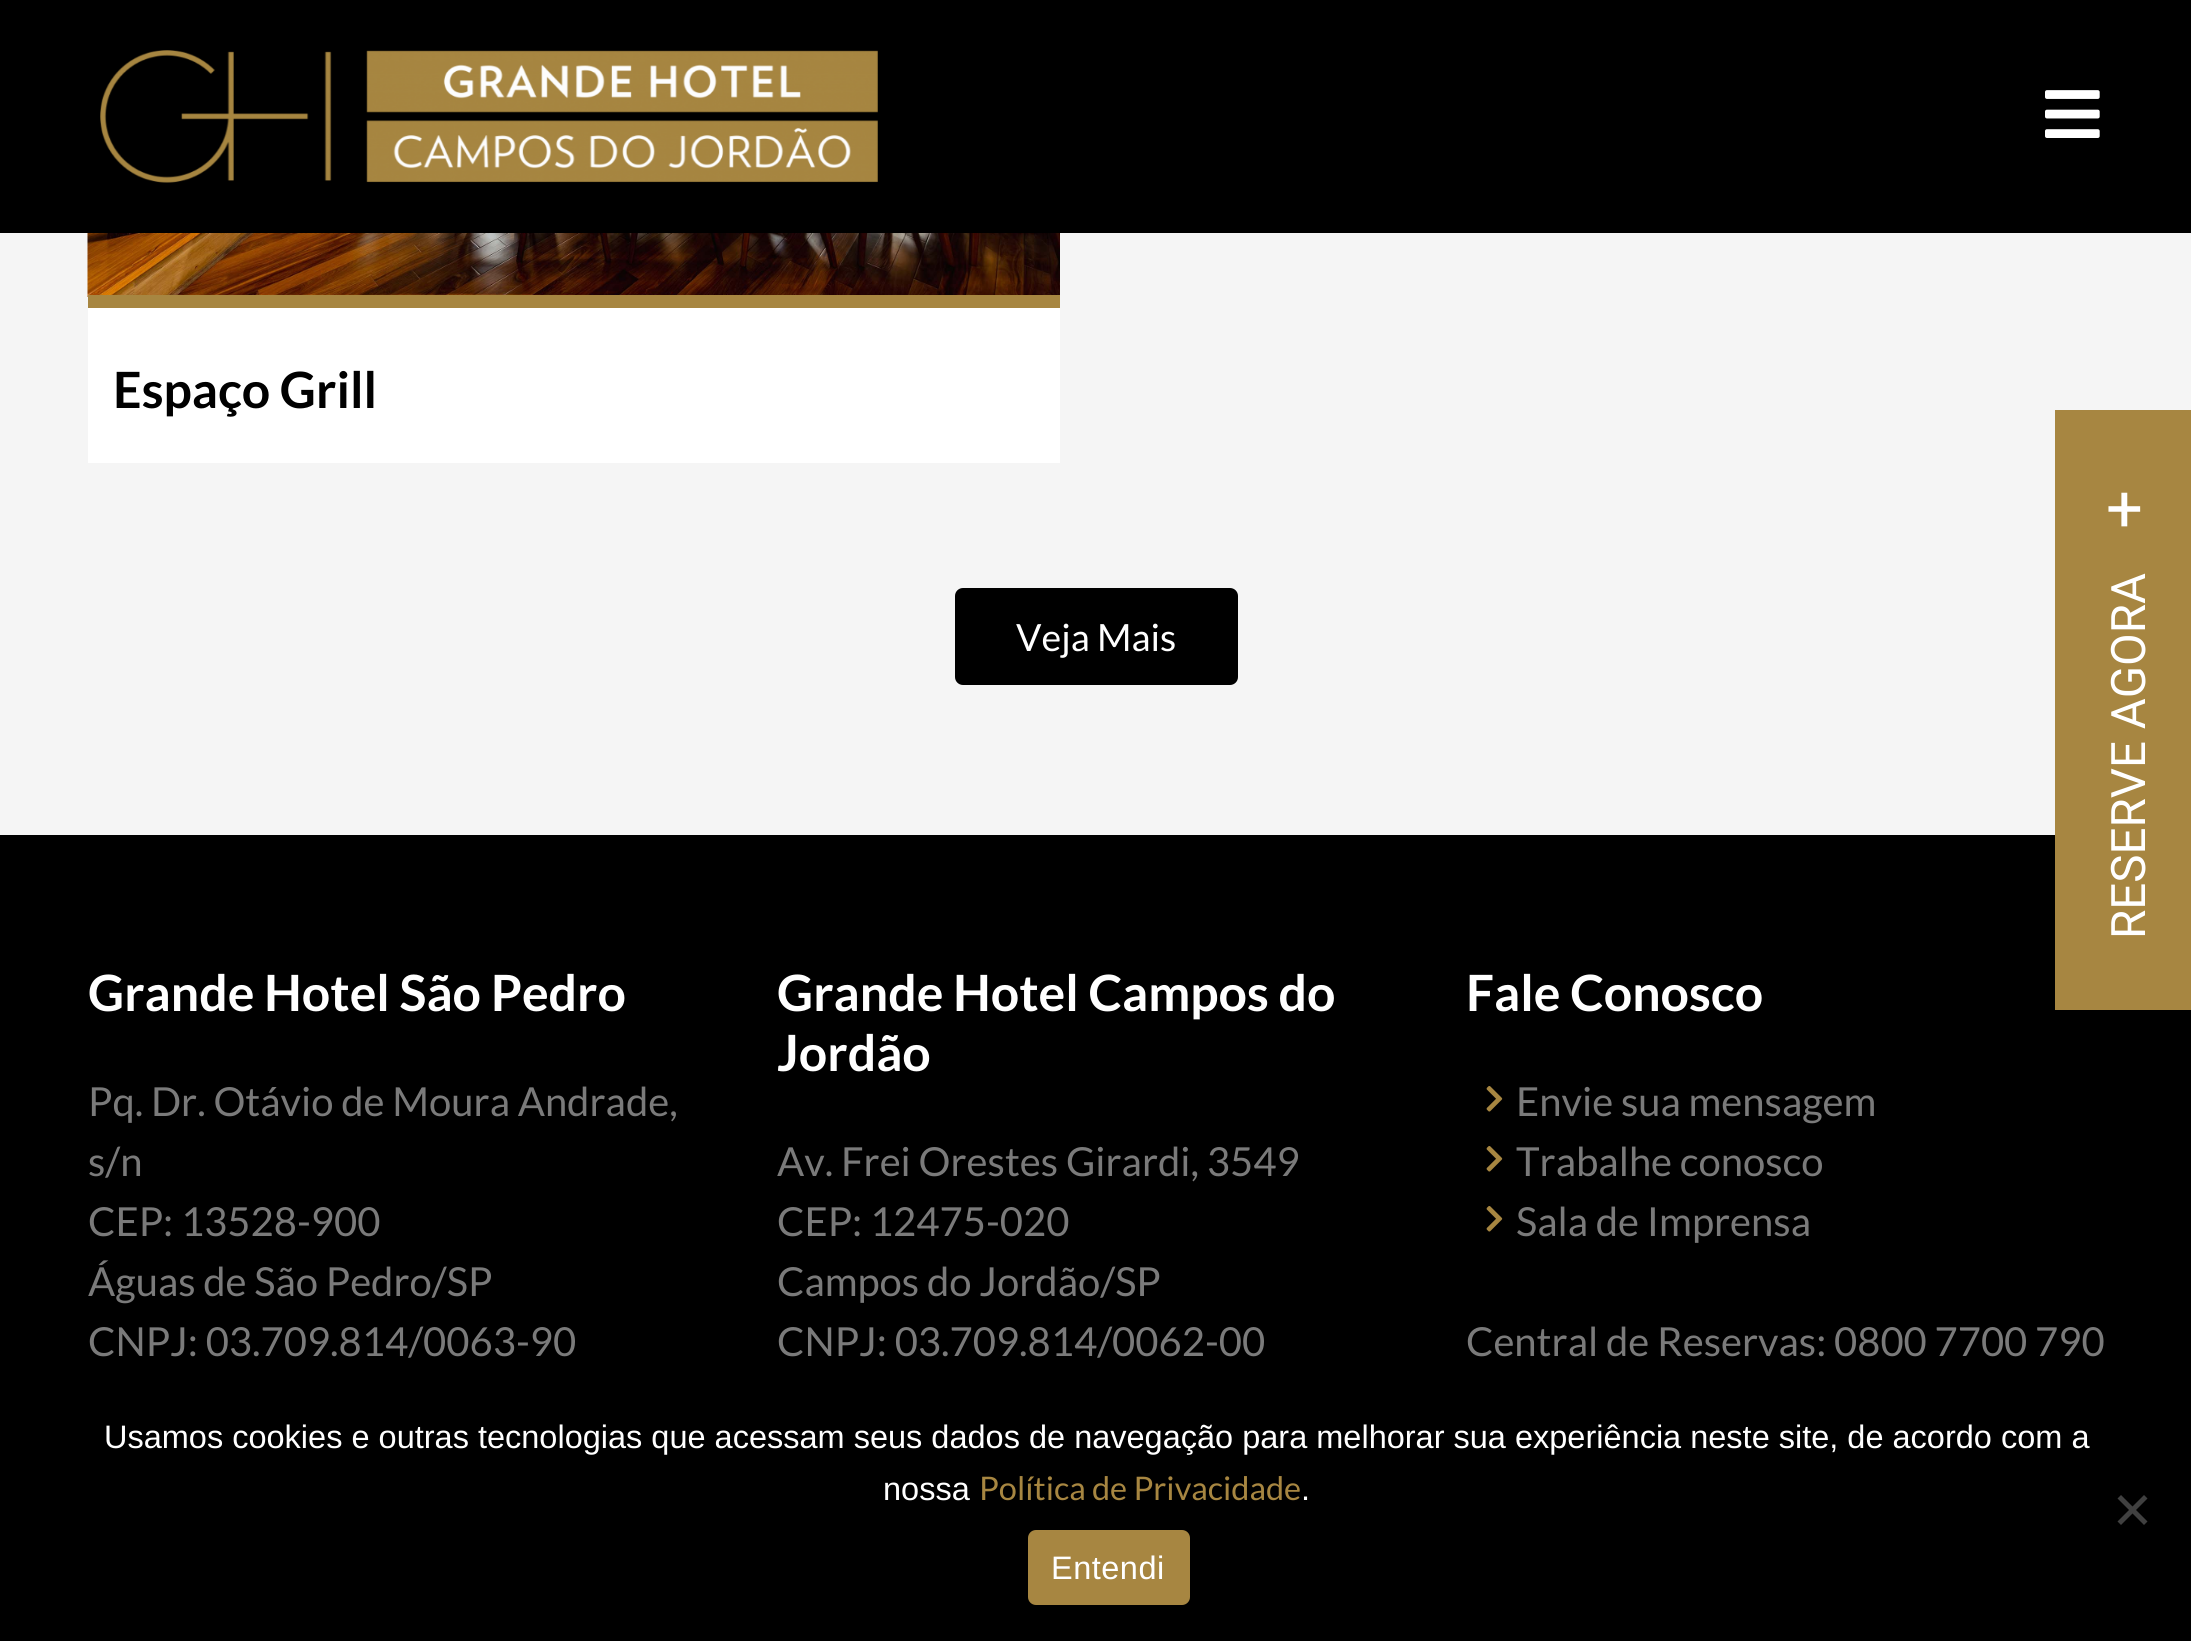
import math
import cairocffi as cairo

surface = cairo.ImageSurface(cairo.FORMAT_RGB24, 2191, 1641)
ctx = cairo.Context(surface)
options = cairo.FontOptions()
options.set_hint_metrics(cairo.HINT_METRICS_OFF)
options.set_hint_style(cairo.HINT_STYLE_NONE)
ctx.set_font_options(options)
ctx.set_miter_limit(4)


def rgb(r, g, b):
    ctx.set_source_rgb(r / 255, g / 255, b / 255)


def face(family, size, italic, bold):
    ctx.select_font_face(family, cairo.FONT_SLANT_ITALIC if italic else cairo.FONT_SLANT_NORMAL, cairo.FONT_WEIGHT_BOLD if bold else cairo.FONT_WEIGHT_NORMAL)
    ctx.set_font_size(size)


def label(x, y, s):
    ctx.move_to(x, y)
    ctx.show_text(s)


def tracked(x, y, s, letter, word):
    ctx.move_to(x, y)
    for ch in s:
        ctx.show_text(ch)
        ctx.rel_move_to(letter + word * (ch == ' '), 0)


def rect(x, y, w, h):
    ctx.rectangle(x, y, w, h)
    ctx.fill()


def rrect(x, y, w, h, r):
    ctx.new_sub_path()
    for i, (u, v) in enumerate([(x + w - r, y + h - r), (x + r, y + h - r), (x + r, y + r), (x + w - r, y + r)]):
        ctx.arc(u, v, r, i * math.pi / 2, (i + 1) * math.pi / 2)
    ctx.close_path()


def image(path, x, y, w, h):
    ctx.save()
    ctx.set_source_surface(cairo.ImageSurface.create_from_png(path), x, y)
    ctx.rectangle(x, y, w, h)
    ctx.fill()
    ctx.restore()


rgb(245, 245, 245)
ctx.paint()
rgb(0, 0, 0)
rect(0, 0, 2191, 233)
image('image0.png', 100, 50, 778, 133)
image('image1.png', 2045, 90, 55, 48)
rgb(255, 255, 255)
rect(88, 308, 972, 155)
image('image2.png', 87, 233, 973, 64)
rgb(167, 134, 65)
rect(88, 295, 972, 13)
face('Lato', 50, 0, 1)
rgb(0, 0, 0)
label(113, 408, 'Espaço Grill')
rrect(955, 588, 283, 97, 8)
ctx.fill()
face('Lato', 37.5, 0, 0)
rgb(255, 255, 255)
label(1016, 651, 'Veja Mais')
rgb(0, 0, 0)
rect(0, 835, 2191, 806)
rgb(167, 134, 65)
rect(2055, 410, 136, 600)
face('Roboto', 65, 0, 0)
rgb(255, 255, 255)
label(2106, 531, '+')
face('Roboto', 47.5, 0, 0)
ctx.save()
ctx.translate(2145, 939)
ctx.rotate(-90 * math.pi / 180)
label(0, 0, 'RESERVE AGORA')
ctx.restore()
face('Lato', 50, 0, 1)
label(88, 1011, 'Grande Hotel São Pedro')
face('Lato', 40, 0, 0)
rgb(122, 122, 122)
label(88, 1116, 'Pq. Dr. Otávio de Moura Andrade,')
label(88, 1176, 's/n')
label(88, 1236, 'CEP: 13528-900')
label(88, 1296, 'Águas de São Pedro/SP')
label(88, 1356, 'CNPJ: 03.709.814/0063-90')
face('Lato', 50, 0, 1)
rgb(255, 255, 255)
label(777, 1011, 'Grande Hotel Campos do')
label(777, 1071, 'Jordão')
face('Lato', 40, 0, 0)
rgb(122, 122, 122)
label(777, 1176, 'Av. Frei Orestes Girardi, 3549')
label(777, 1236, 'CEP: 12475-020')
label(777, 1296, 'Campos do Jordão/SP')
label(777, 1356, 'CNPJ: 03.709.814/0062-00')
face('Lato', 50, 0, 1)
rgb(255, 255, 255)
label(1466, 1011, 'Fale Conosco')
image('image3.png', 1486, 1086, 17, 26)
face('Lato', 40, 0, 0)
rgb(122, 122, 122)
label(1516, 1116, 'Envie sua mensagem')
image('image3.png', 1486, 1146, 17, 26)
label(1516, 1176, 'Trabalhe conosco')
image('image3.png', 1486, 1206, 17, 26)
label(1516, 1236, 'Sala de Imprensa')
label(1466, 1356, 'Central de Reservas: 0800 7700 790')
face('Liberation Sans', 32.5, 0, 0)
rgb(255, 255, 255)
label(104, 1448, 'Usamos cookies e outras tecnologias que acessam seus dados de navegação para melhorar sua experiência neste site, de acordo com a')
label(883, 1500, 'nossa')
face('Lato', 32.5, 0, 0)
rgb(167, 134, 65)
label(979, 1500, 'Política de Privacidade')
face('Liberation Sans', 32.5, 0, 0)
rgb(255, 255, 255)
label(1301, 1500, '.')
rgb(64, 64, 64)
ctx.new_path()
ctx.move_to(2144, 1495)
ctx.line_to(2147.5, 1498.5)
ctx.line_to(2121, 1525)
ctx.line_to(2117.5, 1521.5)
ctx.close_path()
ctx.fill()
ctx.new_path()
ctx.move_to(2117.5, 1498.5)
ctx.line_to(2121, 1495)
ctx.line_to(2147.5, 1521.5)
ctx.line_to(2144, 1525)
ctx.close_path()
ctx.fill()
rgb(167, 134, 65)
rrect(1028, 1530, 162, 75, 8)
ctx.fill()
rgb(255, 255, 255)
tracked(1051, 1579, 'Entendi', 0.5, 0)
surface.write_to_png('render.png')
